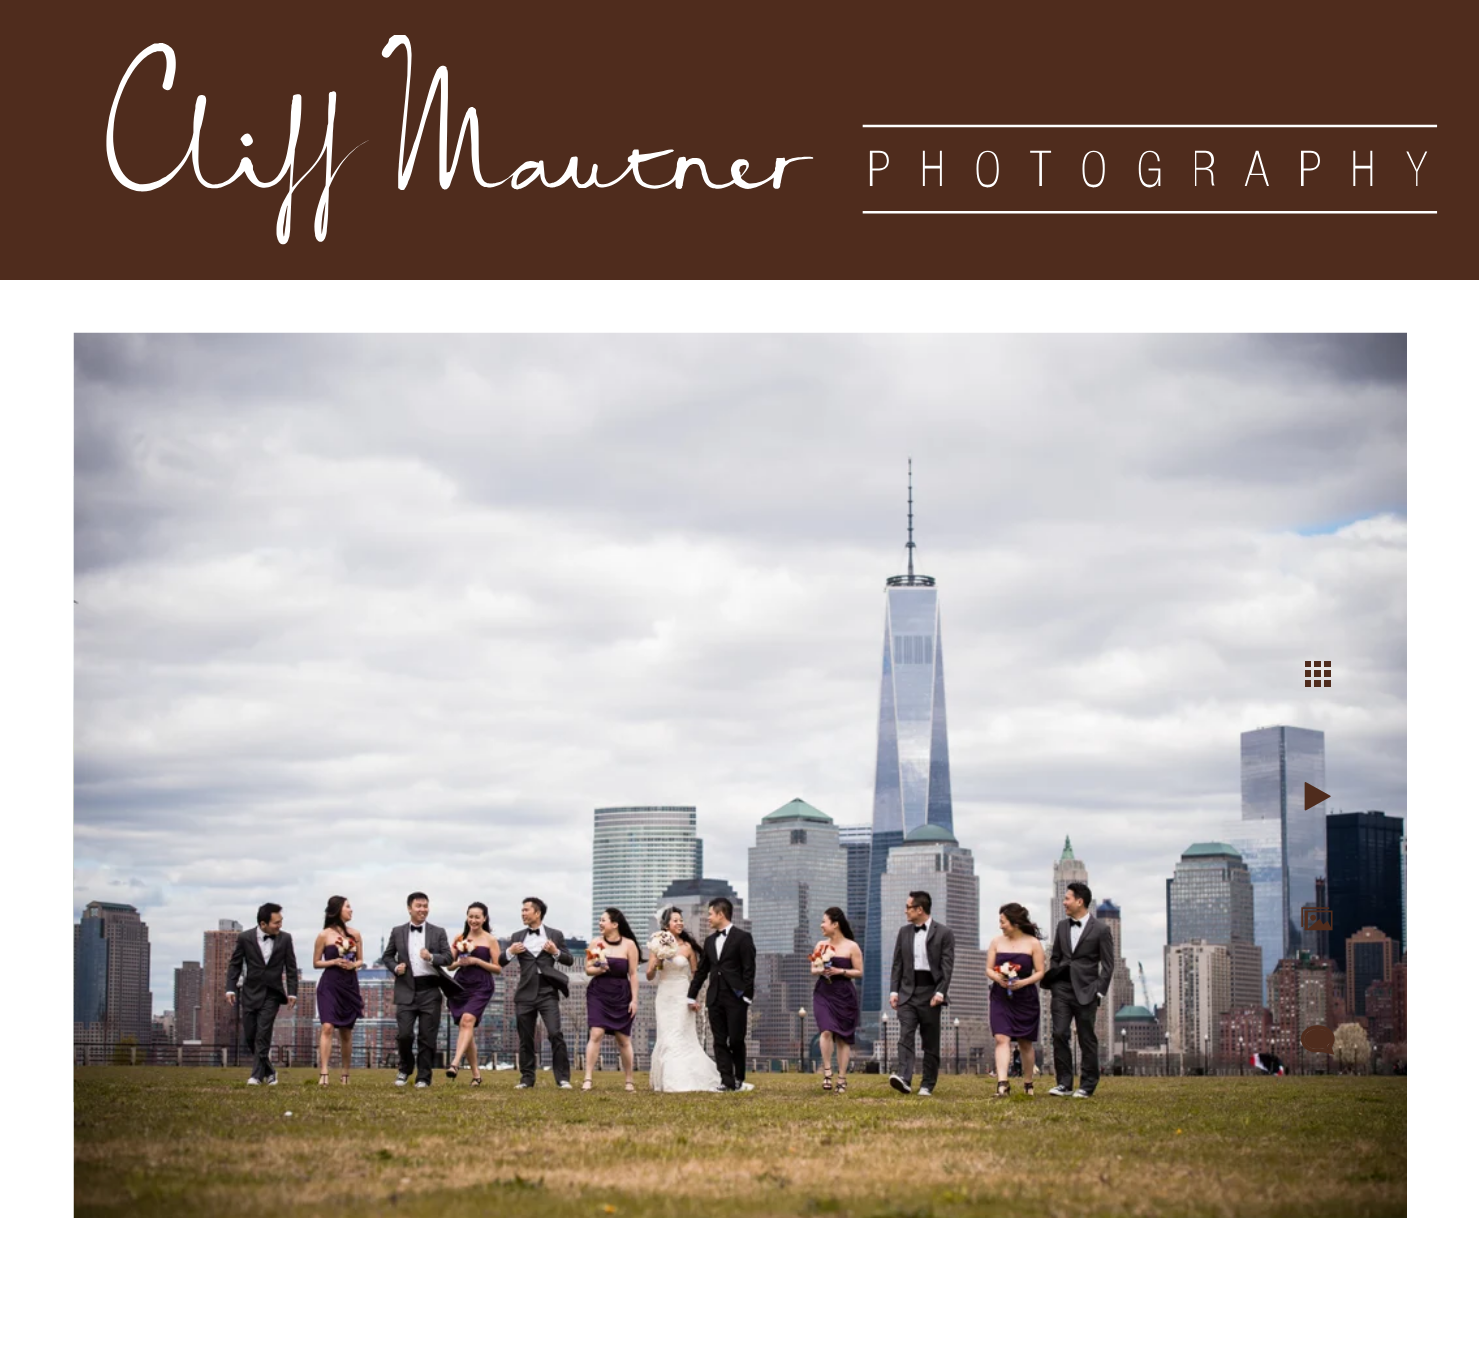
import math
import cairocffi as cairo

surface = cairo.ImageSurface(cairo.FORMAT_RGB24, 1479, 1359)
ctx = cairo.Context(surface)
options = cairo.FontOptions()
options.set_hint_metrics(cairo.HINT_METRICS_OFF)
options.set_hint_style(cairo.HINT_STYLE_NONE)
ctx.set_font_options(options)
ctx.set_miter_limit(4)


def rgb(r, g, b):
    ctx.set_source_rgb(r / 255, g / 255, b / 255)


def rect(x, y, w, h):
    ctx.rectangle(x, y, w, h)
    ctx.fill()


def image(path, x, y, w, h):
    ctx.save()
    ctx.set_source_surface(cairo.ImageSurface.create_from_png(path), x, y)
    ctx.rectangle(x, y, w, h)
    ctx.fill()
    ctx.restore()


rgb(255, 255, 255)
ctx.paint()
rgb(79, 44, 29)
rect(0, 0, 1479, 280)
image('image0.png', 106, 35, 1332, 210)
image('image2.png', 73, 476, 1, 627)
image('image1.png', 73, 332, 1334, 886)
image('image3.png', 1305, 661, 26, 26)
image('image4.png', 1304, 782, 27, 29)
image('image5.png', 1301, 907, 32, 24)
image('image6.png', 1300, 1025, 35, 30)
surface.write_to_png('render.png')
